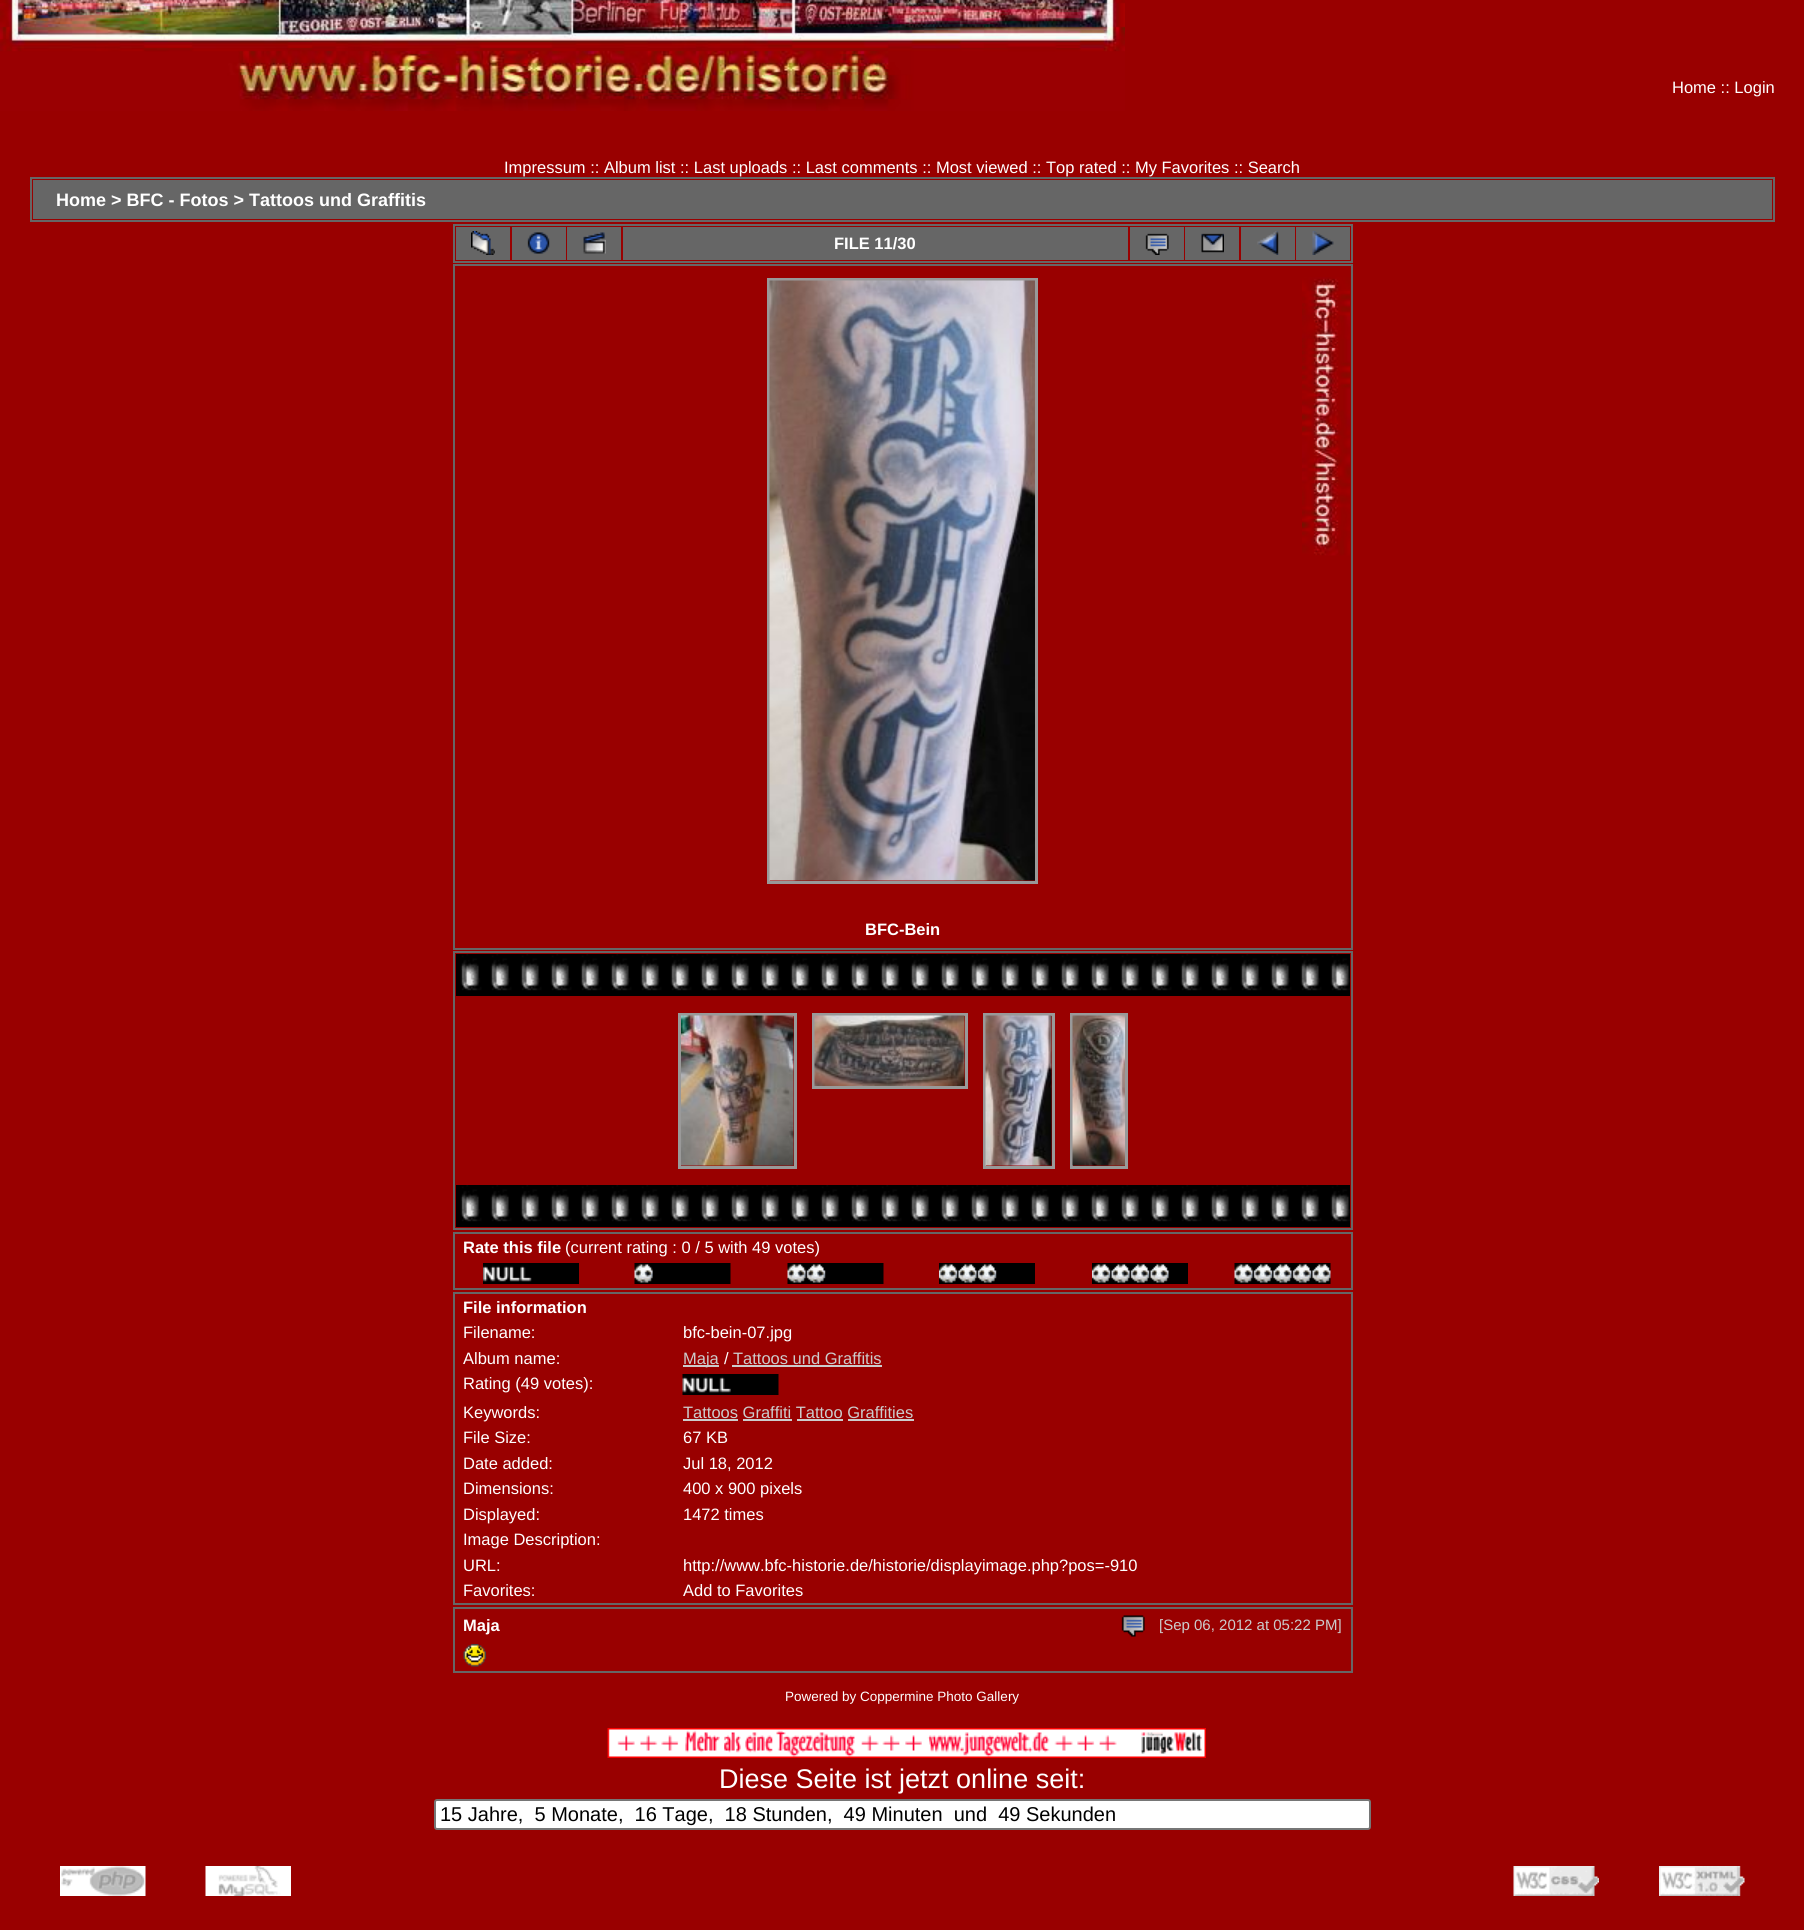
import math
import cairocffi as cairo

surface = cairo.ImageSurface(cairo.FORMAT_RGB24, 1804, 1930)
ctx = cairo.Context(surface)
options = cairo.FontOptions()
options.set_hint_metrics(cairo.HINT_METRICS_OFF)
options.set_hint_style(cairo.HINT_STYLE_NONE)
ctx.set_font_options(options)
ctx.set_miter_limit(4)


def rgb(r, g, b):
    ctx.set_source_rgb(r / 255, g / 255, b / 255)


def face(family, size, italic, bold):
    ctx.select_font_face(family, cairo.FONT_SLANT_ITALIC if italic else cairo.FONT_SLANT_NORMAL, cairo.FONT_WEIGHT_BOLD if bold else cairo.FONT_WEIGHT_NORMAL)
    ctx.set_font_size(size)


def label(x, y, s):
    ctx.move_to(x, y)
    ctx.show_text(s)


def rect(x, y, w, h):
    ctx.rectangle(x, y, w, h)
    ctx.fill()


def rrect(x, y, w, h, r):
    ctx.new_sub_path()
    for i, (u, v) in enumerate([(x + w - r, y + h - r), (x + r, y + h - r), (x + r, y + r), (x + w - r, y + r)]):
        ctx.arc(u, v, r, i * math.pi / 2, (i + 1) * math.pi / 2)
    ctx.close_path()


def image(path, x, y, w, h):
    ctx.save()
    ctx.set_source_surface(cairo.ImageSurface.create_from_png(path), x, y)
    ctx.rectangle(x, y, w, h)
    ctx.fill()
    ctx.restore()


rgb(153, 0, 0)
ctx.paint()
image('image0.png', 0, 0, 1125, 111)
face('Liberation Sans', 16.5, 0, 0)
rgb(255, 255, 255)
label(1672, 93, 'Home :: Login')
label(504, 173, 'Impressum :: Album list :: Last uploads :: Last comments :: Most viewed :: Top rated :: My Favorites :: Search')
ctx.rectangle(31, 178, 1743, 43)
rgb(102, 102, 102)
ctx.stroke()
rect(33, 180, 1739, 39)
face('Liberation Sans', 18, 0, 1)
rgb(255, 255, 255)
label(56, 206, 'Home > BFC - Fotos > Tattoos und Graffitis')
ctx.rectangle(454, 225, 898, 37)
rgb(102, 102, 102)
ctx.stroke()
rect(456, 227, 54, 33)
image('image1.png', 471, 231, 24, 24)
rect(512, 227, 54, 33)
image('image2.png', 527, 232, 23, 22)
rect(567, 227, 54, 33)
image('image3.png', 583, 232, 23, 22)
rect(623, 227, 505, 33)
face('Liberation Sans', 16.5, 0, 1)
rgb(255, 255, 255)
label(834, 249, 'FILE 11/30')
rgb(102, 102, 102)
rect(1130, 227, 54, 33)
image('image4.png', 1145, 233, 24, 22)
rect(1185, 227, 54, 33)
image('image5.png', 1201, 233, 23, 20)
rect(1241, 227, 54, 33)
image('image6.png', 1257, 231, 22, 24)
rect(1296, 227, 54, 33)
image('image7.png', 1312, 231, 22, 24)
ctx.rectangle(454, 265, 898, 684)
ctx.stroke()
image('image8.png', 1302, 277, 48, 279)
ctx.rectangle(768.5, 279.5, 268, 603)
rgb(153, 153, 153)
ctx.set_line_width(3)
ctx.stroke()
image('image9.png', 769, 280, 266, 601)
rgb(255, 255, 255)
label(865, 935, 'BFC-Bein')
ctx.rectangle(454, 952, 898, 277)
rgb(102, 102, 102)
ctx.set_line_width(2)
ctx.stroke()
image('image10.png', 456, 954, 894, 42)
image('image11.png', 461, 970, 12, 17)
ctx.rectangle(679.5, 1014.5, 116, 153)
rgb(153, 153, 153)
ctx.set_line_width(3)
ctx.stroke()
image('image12.png', 681, 1015, 113, 151)
ctx.rectangle(813.5, 1014.5, 153, 73)
ctx.stroke()
image('image13.png', 814, 1015, 151, 71)
ctx.rectangle(984.5, 1014.5, 69, 153)
ctx.stroke()
image('image14.png', 985, 1015, 67, 151)
ctx.rectangle(1071.5, 1014.5, 55, 153)
ctx.stroke()
image('image15.png', 1072, 1015, 53, 151)
image('image10.png', 456, 1185, 894, 42)
image('image11.png', 461, 1201, 12, 17)
ctx.rectangle(454, 1233, 898, 56)
rgb(102, 102, 102)
ctx.set_line_width(2)
ctx.stroke()
rgb(255, 255, 255)
label(463, 1253, 'Rate this file')
face('Liberation Sans', 16.5, 0, 0)
label(565, 1253, '(current rating : 0 / 5 with 49 votes)')
image('image16.png', 483, 1263, 96, 21)
image('image17.png', 634, 1263, 97, 21)
image('image18.png', 787, 1263, 97, 21)
image('image19.png', 939, 1263, 96, 21)
image('image20.png', 1092, 1263, 96, 21)
image('image21.png', 1234, 1263, 97, 21)
ctx.rectangle(454, 1293, 898, 311)
rgb(102, 102, 102)
ctx.stroke()
face('Liberation Sans', 16.5, 0, 1)
rgb(255, 255, 255)
label(463, 1313, 'File information')
face('Liberation Sans', 16.5, 0, 0)
label(463, 1338, 'Filename:')
label(683, 1338, 'bfc-bein-07.jpg')
label(463, 1364, 'Album name:')
rgb(204, 204, 204)
rect(683, 1365, 36, 2)
label(683, 1364, 'Maja')
rgb(255, 255, 255)
label(724, 1364, '/')
rgb(204, 204, 204)
label(733, 1364, 'Tattoos und Graffitis')
rect(732, 1365, 150, 2)
rgb(255, 255, 255)
label(463, 1389, 'Rating (49 votes):')
image('image22.png', 682, 1374, 97, 21)
label(463, 1418, 'Keywords:')
rgb(204, 204, 204)
label(683, 1418, 'Tattoos Graffiti Tattoo Graffities')
rect(683, 1419, 55, 2)
rect(743, 1419, 49, 2)
rect(797, 1419, 46, 2)
rect(848, 1419, 66, 2)
rgb(255, 255, 255)
label(463, 1443, 'File Size:')
label(683, 1443, '67 KB')
label(463, 1469, 'Date added:')
label(683, 1469, 'Jul 18, 2012')
label(463, 1494, 'Dimensions:')
label(683, 1494, '400 x 900 pixels')
label(463, 1520, 'Displayed:')
label(683, 1520, '1472 times')
label(463, 1545, 'Image Description:')
label(463, 1571, 'URL:')
label(683, 1571, 'http://www.bfc-historie.de/historie/displayimage.php?pos=-910')
label(463, 1596, 'Favorites:')
label(683, 1596, 'Add to Favorites')
ctx.rectangle(454, 1608, 898, 64)
rgb(102, 102, 102)
ctx.stroke()
face('Liberation Sans', 16.5, 0, 1)
rgb(255, 255, 255)
label(463, 1631, 'Maja')
image('image23.png', 1121, 1615, 24, 22)
face('Liberation Sans', 15, 0, 0)
rgb(204, 204, 204)
label(1159, 1630, '[Sep 06, 2012 at 05:22 PM]')
image('image24.png', 463, 1644, 23, 23)
face('Liberation Sans', 13.5, 0, 0)
rgb(255, 255, 255)
label(785, 1701, 'Powered by Coppermine Photo Gallery')
image('image25.png', 607, 1728, 599, 30)
face('Liberation Sans', 27, 0, 0)
label(719, 1788, 'Diese Seite ist jetzt online seit:')
rrect(435, 1800, 935, 29, 2)
ctx.fill_preserve()
rgb(118, 118, 118)
ctx.stroke()
face('Liberation Sans', 20, 0, 0)
rgb(0, 0, 0)
label(440, 1821, '15 Jahre,  5 Monate,  16 Tage,  18 Stunden,  49 Minuten  und  49 Sekunden')
image('image26.png', 60, 1866, 86, 30)
image('image27.png', 205, 1866, 86, 30)
image('image28.png', 1513, 1866, 86, 30)
image('image29.png', 1659, 1866, 86, 30)
surface.write_to_png('render.png')
